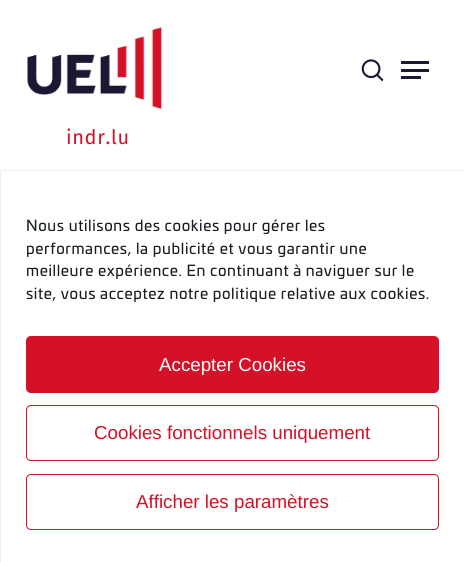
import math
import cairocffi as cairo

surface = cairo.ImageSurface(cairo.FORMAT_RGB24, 464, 562)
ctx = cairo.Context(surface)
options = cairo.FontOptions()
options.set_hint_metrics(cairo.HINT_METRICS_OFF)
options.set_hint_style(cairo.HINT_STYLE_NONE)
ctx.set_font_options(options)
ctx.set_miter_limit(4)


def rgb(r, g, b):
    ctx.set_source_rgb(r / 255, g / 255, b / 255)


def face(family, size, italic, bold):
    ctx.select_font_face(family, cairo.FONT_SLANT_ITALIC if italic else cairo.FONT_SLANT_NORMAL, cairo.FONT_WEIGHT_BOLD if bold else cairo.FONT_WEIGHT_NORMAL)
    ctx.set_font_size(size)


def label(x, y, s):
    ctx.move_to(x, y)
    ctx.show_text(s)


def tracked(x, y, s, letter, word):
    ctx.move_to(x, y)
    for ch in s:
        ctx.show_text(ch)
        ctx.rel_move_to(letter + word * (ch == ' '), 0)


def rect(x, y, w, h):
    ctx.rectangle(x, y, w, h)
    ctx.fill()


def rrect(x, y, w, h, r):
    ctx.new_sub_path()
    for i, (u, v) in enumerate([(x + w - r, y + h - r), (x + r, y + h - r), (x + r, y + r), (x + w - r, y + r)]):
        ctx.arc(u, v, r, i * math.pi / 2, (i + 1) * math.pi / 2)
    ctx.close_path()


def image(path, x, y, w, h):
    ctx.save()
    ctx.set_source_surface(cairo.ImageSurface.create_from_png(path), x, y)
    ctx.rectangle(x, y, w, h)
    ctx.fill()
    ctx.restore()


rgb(255, 255, 255)
ctx.paint()
image('image0.png', 27, 27, 135, 82)
image('image1.png', 361, 59, 23, 22)
rgb(27, 24, 52)
rect(401, 61, 28, 3)
rect(401, 76, 20, 3)
rect(401, 69, 28, 3)
face('Fira Sans', 20, 0, 0)
rgb(212, 17, 38)
tracked(66, 144, 'indr.lu', 0.62, 0)
ctx.rectangle(0.5, 170.5, 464, 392)
rgb(241, 241, 241)
ctx.set_line_width(1)
ctx.stroke()
face('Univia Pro', 15, 0, 0)
rgb(25, 30, 35)
tracked(26, 231, 'Nous utilisons des cookies pour gérer les', 0.62, 0)
tracked(26, 254, 'performances, la publicité et vous garantir une', 0.62, 0)
tracked(26, 276, 'meilleure expérience. En continuant à naviguer sur le', 0.62, 0)
tracked(26, 299, 'site, vous acceptez notre politique relative aux cookies.', 0.62, 0)
rgb(212, 17, 38)
rrect(26.5, 336.5, 412, 56, 4.5)
ctx.fill_preserve()
ctx.stroke()
face('Liberation Sans', 18.75, 0, 0)
rgb(255, 255, 255)
label(159, 371, 'Accepter Cookies')
rrect(26.5, 405.5, 412, 55, 4.5)
rgb(212, 17, 38)
ctx.stroke()
label(94, 439, 'Cookies fonctionnels uniquement')
rrect(26.5, 474.5, 412, 55, 4.5)
ctx.stroke()
label(136, 508, 'Afficher les paramètres')
surface.write_to_png('render.png')
